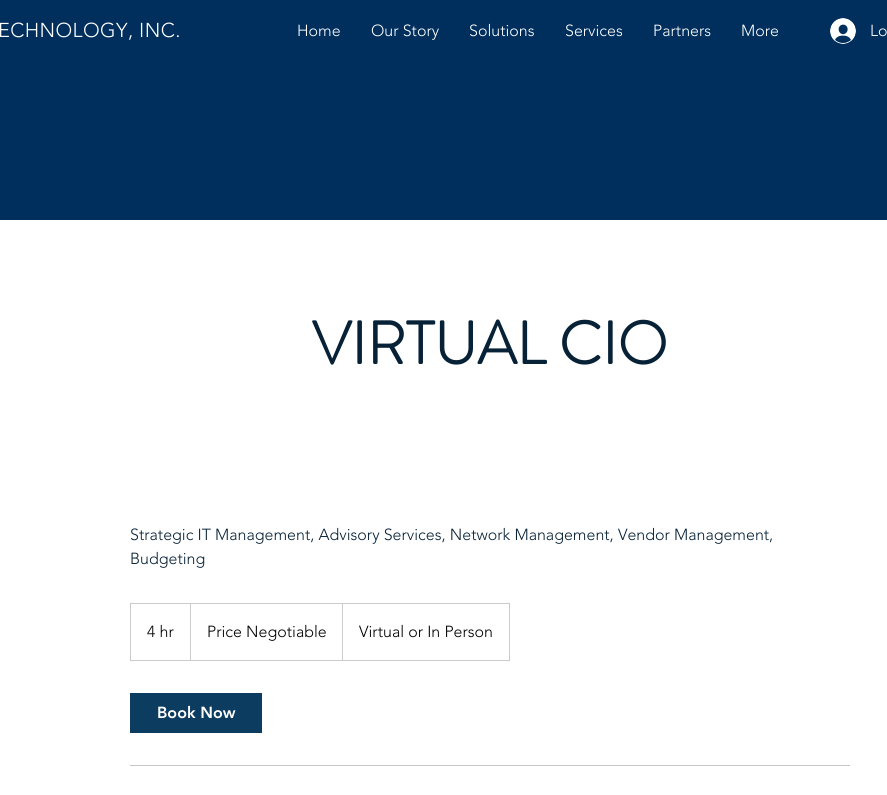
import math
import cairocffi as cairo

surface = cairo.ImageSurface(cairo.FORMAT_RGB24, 887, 795)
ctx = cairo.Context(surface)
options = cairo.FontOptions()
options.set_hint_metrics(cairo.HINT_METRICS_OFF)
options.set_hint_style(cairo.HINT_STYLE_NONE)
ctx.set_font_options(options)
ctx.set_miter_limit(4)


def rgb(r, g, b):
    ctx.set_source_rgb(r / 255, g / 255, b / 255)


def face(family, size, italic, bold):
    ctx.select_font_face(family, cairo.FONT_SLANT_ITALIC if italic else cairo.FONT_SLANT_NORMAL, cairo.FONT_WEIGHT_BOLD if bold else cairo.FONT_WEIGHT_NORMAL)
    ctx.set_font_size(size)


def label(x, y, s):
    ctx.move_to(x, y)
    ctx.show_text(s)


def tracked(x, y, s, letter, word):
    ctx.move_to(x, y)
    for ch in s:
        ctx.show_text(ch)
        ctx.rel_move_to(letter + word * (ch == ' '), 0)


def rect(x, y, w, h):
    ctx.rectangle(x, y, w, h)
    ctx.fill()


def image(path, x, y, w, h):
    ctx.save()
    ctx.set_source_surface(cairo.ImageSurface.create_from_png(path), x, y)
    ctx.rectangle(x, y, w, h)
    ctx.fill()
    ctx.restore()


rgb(255, 255, 255)
ctx.paint()
rgb(0, 46, 93)
rect(0, 0, 887, 220)
face('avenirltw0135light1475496 Light', 20, 0, 0)
rgb(255, 255, 255)
tracked(-2, 37, 'ECHNOLOGY, INC.', 0.4, 0)
face('avenirltw0135light1475496 Light', 16, 0, 0)
label(297, 36, 'Home')
label(371, 36, 'Our Story')
label(469, 36, 'Solutions')
label(565, 36, 'Services')
label(653, 36, 'Partners')
label(741, 36, 'More')
image('image0.png', 830, 18, 26, 26)
label(870, 36, 'Lo')
face('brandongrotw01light', 60, 0, 1)
rgb(7, 33, 54)
label(312, 364, 'VIRTUAL CIO')
face('avenirltw0135light1475496 Light', 16, 0, 0)
label(130, 540, 'Strategic IT Management, Advisory Services, Network Management, Vendor Management,')
label(130, 564, 'Budgeting')
ctx.rectangle(130.5, 603.5, 379, 57)
rgb(204, 204, 204)
ctx.set_line_width(1)
ctx.stroke()
rgb(0, 0, 0)
label(147, 637, '4 hr')
rgb(204, 204, 204)
ctx.new_path()
ctx.move_to(190, 660)
ctx.line_to(190, 603)
ctx.line_to(191, 604)
ctx.line_to(191, 660)
ctx.close_path()
ctx.fill()
rgb(0, 0, 0)
label(207, 637, 'Price Negotiable')
rgb(204, 204, 204)
ctx.new_path()
ctx.move_to(342, 660)
ctx.line_to(342, 603)
ctx.line_to(343, 604)
ctx.line_to(343, 660)
ctx.close_path()
ctx.fill()
rgb(0, 0, 0)
label(359, 637, 'Virtual or In Person')
rgb(12, 60, 96)
rect(130, 693, 132, 40)
face('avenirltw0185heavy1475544 Black', 16, 0, 0)
rgb(255, 255, 255)
label(157, 718, 'Book Now')
rgb(199, 199, 199)
rect(130, 765, 720, 1)
surface.write_to_png('render.png')
